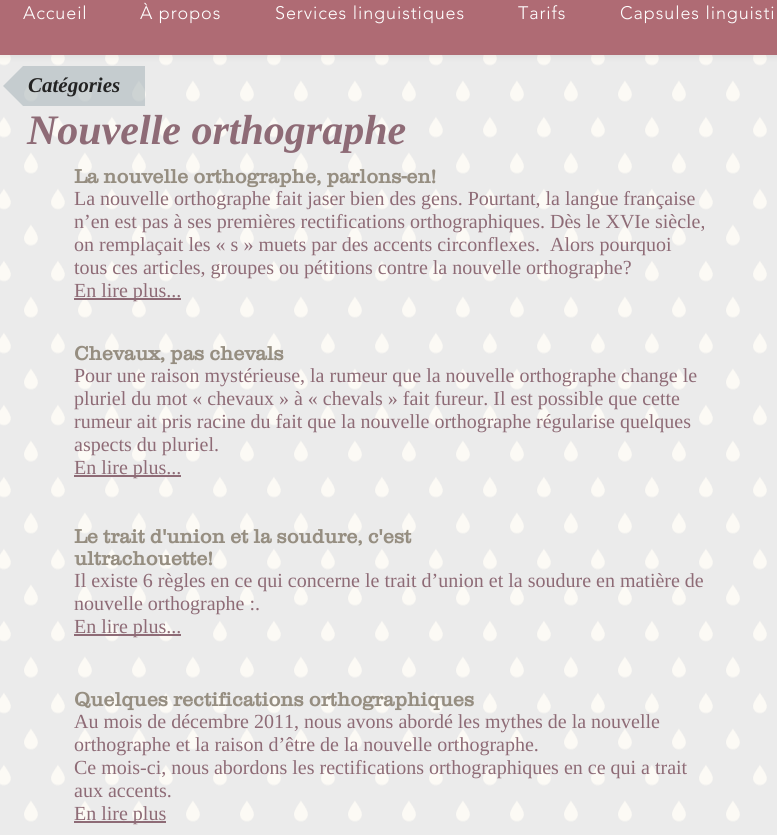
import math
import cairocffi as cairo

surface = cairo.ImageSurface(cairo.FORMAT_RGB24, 777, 835)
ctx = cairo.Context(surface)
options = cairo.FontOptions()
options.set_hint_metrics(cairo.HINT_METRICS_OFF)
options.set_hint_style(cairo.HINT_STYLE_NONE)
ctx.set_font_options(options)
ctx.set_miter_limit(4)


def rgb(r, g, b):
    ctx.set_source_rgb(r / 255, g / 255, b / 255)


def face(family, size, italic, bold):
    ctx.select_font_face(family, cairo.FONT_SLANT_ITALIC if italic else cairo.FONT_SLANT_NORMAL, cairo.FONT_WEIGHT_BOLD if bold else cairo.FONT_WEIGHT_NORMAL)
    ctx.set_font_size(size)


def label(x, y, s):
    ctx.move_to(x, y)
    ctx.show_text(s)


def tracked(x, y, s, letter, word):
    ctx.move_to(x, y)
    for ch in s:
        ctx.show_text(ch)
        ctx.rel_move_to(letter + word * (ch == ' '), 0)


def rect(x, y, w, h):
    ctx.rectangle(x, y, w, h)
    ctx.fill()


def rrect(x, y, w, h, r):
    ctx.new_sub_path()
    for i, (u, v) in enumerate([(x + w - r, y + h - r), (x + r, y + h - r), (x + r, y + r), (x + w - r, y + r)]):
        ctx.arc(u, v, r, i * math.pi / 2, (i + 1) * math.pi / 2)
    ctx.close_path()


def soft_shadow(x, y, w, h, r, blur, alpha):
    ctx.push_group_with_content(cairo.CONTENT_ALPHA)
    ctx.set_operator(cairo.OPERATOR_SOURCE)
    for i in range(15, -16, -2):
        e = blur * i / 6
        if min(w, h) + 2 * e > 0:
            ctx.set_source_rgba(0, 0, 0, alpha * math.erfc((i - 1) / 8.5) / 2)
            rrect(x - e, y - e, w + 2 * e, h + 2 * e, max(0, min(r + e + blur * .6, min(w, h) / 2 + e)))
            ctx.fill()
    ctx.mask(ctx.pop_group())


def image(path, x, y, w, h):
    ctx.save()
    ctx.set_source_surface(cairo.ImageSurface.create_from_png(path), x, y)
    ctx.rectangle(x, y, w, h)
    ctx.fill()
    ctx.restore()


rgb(235, 235, 235)
ctx.paint()
image('image0.png', 0, 55, 767, 767)
rgb(0, 0, 0)
soft_shadow(-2, -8, 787, 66, 0, 2.5, 0.05)
rgb(175, 107, 116)
rect(0, 0, 777, 55)
face('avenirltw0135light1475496 Light', 18, 0, 0)
rgb(255, 255, 255)
tracked(23, 19, 'Accueil', 0.9, 0)
tracked(140, 19, 'À propos', 0.9, 0)
tracked(275, 19, 'Services linguistiques', 0.9, 0)
tracked(518, 19, 'Tarifs', 0.9, 0)
tracked(620, 19, 'Capsules linguisti', 0.9, 0)
ctx.save()
ctx.rectangle(3, 66, 142, 40)
ctx.clip()
ctx.set_source_rgba(0.651, 0.698, 0.722, 0.54)
ctx.new_path()
ctx.move_to(53, 86)
ctx.line_to(3, 86)
ctx.line_to(53, 36)
ctx.close_path()
ctx.move_to(3, 86)
ctx.line_to(53, 86)
ctx.line_to(53, 136)
ctx.close_path()
ctx.fill()
ctx.restore()
ctx.set_source_rgba(0.651, 0.698, 0.722, 0.54)
rect(53, 66, 92, 40)
face('Liberation Serif', 21, 1, 1)
rgb(35, 35, 35)
label(28, 92, 'Catégories')
face('Liberation Serif', 42, 1, 1)
rgb(142, 107, 118)
label(27, 144, 'Nouvelle orthographe')
face('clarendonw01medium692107', 20, 0, 1)
rgb(150, 142, 129)
label(74, 183, 'La nouvelle orthographe, parlons-en!')
face('Liberation Serif', 20, 0, 0)
rgb(142, 107, 118)
label(74, 205, 'La nouvelle orthographe fait jaser bien des gens. Pourtant, la langue française')
label(74, 228, 'n’en est pas à ses premières rectifications orthographiques. Dès le XVIe siècle,')
label(74, 251, 'on remplaçait les « s » muets par des accents circonflexes.  Alors pourquoi')
label(74, 274, 'tous ces articles, groupes ou pétitions contre la nouvelle orthographe?')
rect(74, 298, 107, 2)
label(74, 297, 'En lire plus...')
face('clarendonw01medium692107', 20, 0, 1)
rgb(150, 142, 129)
label(74, 360, 'Chevaux, pas chevals')
face('Liberation Serif', 20, 0, 0)
rgb(142, 107, 118)
label(74, 382, 'Pour une raison mystérieuse, la rumeur que la nouvelle orthographe change le')
label(74, 405, 'pluriel du mot « chevaux » à « chevals » fait fureur. Il est possible que cette')
label(74, 428, 'rumeur ait pris racine du fait que la nouvelle orthographe régularise quelques')
label(74, 451, 'aspects du pluriel.')
rect(74, 475, 107, 2)
label(74, 474, 'En lire plus...')
face('clarendonw01medium692107', 20, 0, 1)
rgb(150, 142, 129)
label(74, 543, 'Le trait d\'union et la soudure, c\'est')
label(74, 565, 'ultrachouette!')
face('Liberation Serif', 20, 0, 0)
rgb(142, 107, 118)
label(74, 587, 'Il existe 6 règles en ce qui concerne le trait d’union et la soudure en matière de')
label(74, 610, 'nouvelle orthographe :.')
rect(74, 634, 107, 2)
label(74, 633, 'En lire plus...')
face('clarendonw01medium692107', 20, 0, 1)
rgb(150, 142, 129)
label(74, 706, 'Quelques rectifications orthographiques')
face('Liberation Serif', 20, 0, 0)
rgb(142, 107, 118)
label(74, 728, 'Au mois de décembre 2011, nous avons abordé les mythes de la nouvelle')
label(74, 751, 'orthographe et la raison d’être de la nouvelle orthographe.')
label(74, 774, 'Ce mois-ci, nous abordons les rectifications orthographiques en ce qui a trait')
label(74, 797, 'aux accents.')
rect(74, 821, 92, 2)
label(74, 820, 'En lire plus')
surface.write_to_png('render.png')
